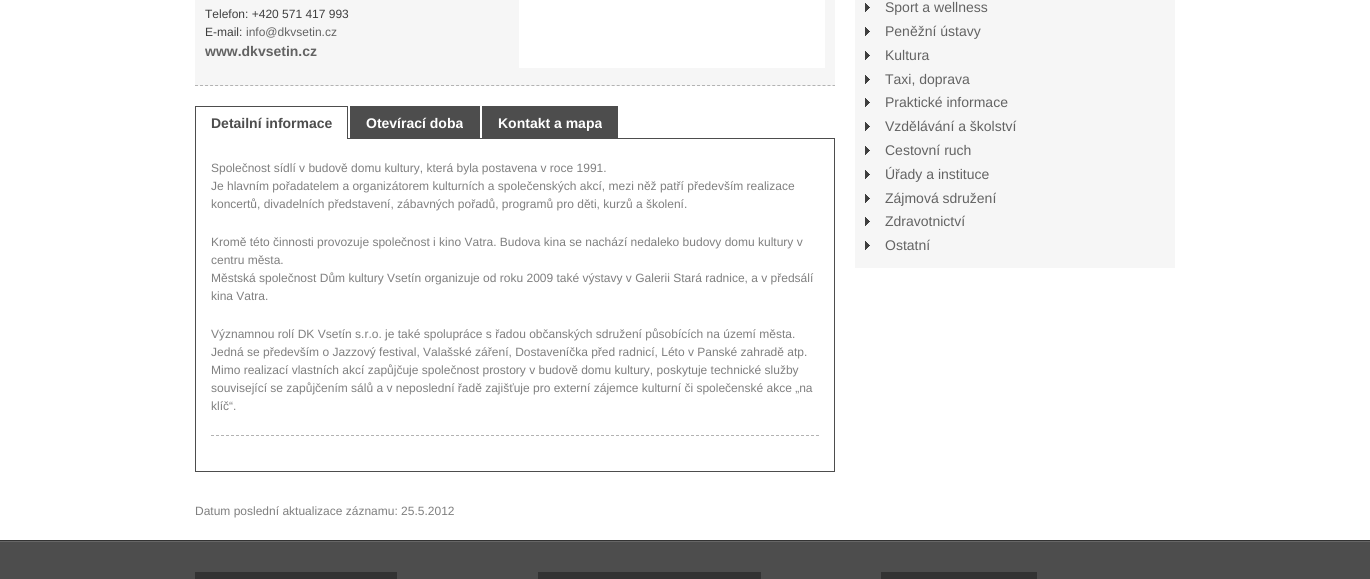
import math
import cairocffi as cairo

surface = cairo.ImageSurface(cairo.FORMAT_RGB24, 1370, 579)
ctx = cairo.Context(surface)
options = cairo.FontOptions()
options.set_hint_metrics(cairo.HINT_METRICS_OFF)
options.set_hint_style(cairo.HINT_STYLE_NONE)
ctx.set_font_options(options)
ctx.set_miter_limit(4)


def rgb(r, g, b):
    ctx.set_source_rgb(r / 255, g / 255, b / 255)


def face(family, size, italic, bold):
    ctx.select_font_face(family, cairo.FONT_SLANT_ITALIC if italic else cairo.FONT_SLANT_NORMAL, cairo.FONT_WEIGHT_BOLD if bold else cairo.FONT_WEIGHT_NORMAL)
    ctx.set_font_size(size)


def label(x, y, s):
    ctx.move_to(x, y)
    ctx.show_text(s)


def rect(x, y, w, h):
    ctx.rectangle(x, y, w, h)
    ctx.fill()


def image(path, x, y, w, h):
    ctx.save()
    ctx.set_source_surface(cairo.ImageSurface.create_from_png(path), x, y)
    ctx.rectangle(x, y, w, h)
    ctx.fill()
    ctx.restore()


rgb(255, 255, 255)
ctx.paint()
rgb(246, 246, 246)
rect(195, 0, 640, 86)
ctx.new_path()
ctx.move_to(195, 85.5)
ctx.line_to(835, 85.5)
rgb(179, 179, 179)
ctx.set_line_width(1)
ctx.set_dash([3, 2.02])
ctx.stroke()
face('Liberation Sans', 12, 0, 0)
rgb(63, 63, 63)
label(205, 18, 'Telefon: +420 571 417 993')
label(205, 36, 'E-mail:')
rgb(99, 99, 99)
label(246, 36, 'info@dkvsetin.cz')
face('Liberation Sans', 14, 0, 1)
label(205, 56, 'www.dkvsetin.cz')
rgb(255, 255, 255)
rect(519, 0, 306, 68)
ctx.rectangle(195.5, 138.5, 639, 333)
rgb(77, 77, 77)
ctx.set_dash([])
ctx.stroke()
rgb(255, 255, 255)
rect(196, 138, 151, 1)
rgb(77, 77, 77)
rect(195, 106, 153, 1)
rect(347, 106, 1, 33)
rect(195, 106, 1, 33)
label(211, 128, 'Detailní informace')
rect(350, 106, 130, 32)
rgb(255, 255, 255)
label(366, 128, 'Otevírací doba')
rgb(77, 77, 77)
rect(482, 106, 136, 32)
rgb(255, 255, 255)
label(498, 128, 'Kontakt a mapa')
ctx.new_path()
ctx.move_to(211, 435.5)
ctx.line_to(819, 435.5)
rgb(179, 179, 179)
ctx.set_dash([3, 2])
ctx.stroke()
face('Liberation Sans', 12, 0, 0)
rgb(127, 127, 127)
label(211, 172, 'Společnost sídlí v budově domu kultury, která byla postavena v roce 1991.')
label(211, 190, 'Je hlavním pořadatelem a organizátorem kulturních a společenských akcí, mezi něž patří především realizace')
label(211, 208, 'koncertů, divadelních představení, zábavných pořadů, programů pro děti, kurzů a školení.')
label(211, 246, 'Kromě této činnosti provozuje společnost i kino Vatra. Budova kina se nachází nedaleko budovy domu kultury v')
label(211, 264, 'centru města.')
label(211, 282, 'Městská společnost Dům kultury Vsetín organizuje od roku 2009 také výstavy v Galerii Stará radnice, a v předsálí')
label(211, 300, 'kina Vatra.')
label(211, 338, 'Významnou rolí DK Vsetín s.r.o. je také spolupráce s řadou občanských sdružení působících na území města.')
label(211, 356, 'Jedná se především o Jazzový festival, Valašské záření, Dostaveníčka před radnicí, Léto v Panské zahradě atp.')
label(211, 374, 'Mimo realizací vlastních akcí zapůjčuje společnost prostory v budově domu kultury, poskytuje technické služby')
label(211, 392, 'související se zapůjčením sálů a v neposlední řadě zajišťuje pro externí zájemce kulturní či společenské akce „na')
label(211, 410, 'klíč“.')
label(195, 515, 'Datum poslední aktualizace záznamu: 25.5.2012')
rgb(246, 246, 246)
rect(855, 0, 320, 268)
image('image0.png', 865, 3, 5, 9)
face('Liberation Sans', 14, 0, 0)
rgb(99, 99, 99)
label(885, 12, 'Sport a wellness')
image('image0.png', 865, 27, 5, 9)
label(885, 36, 'Peněžní ústavy')
image('image0.png', 865, 51, 5, 9)
label(885, 60, 'Kultura')
image('image0.png', 865, 75, 5, 9)
label(885, 84, 'Taxi, doprava')
image('image0.png', 865, 98, 5, 9)
label(885, 107, 'Praktické informace')
image('image0.png', 865, 122, 5, 9)
label(885, 131, 'Vzdělávání a školství')
image('image0.png', 865, 146, 5, 9)
label(885, 155, 'Cestovní ruch')
image('image0.png', 865, 170, 5, 9)
label(885, 179, 'Úřady a instituce')
image('image0.png', 865, 194, 5, 9)
label(885, 203, 'Zájmová sdružení')
image('image0.png', 865, 217, 5, 9)
label(885, 226, 'Zdravotnictví')
image('image0.png', 865, 241, 5, 9)
label(885, 250, 'Ostatní')
rgb(51, 51, 51)
rect(0, 540, 1370, 1)
rgb(77, 77, 77)
rect(0, 542, 1370, 37)
rgb(102, 102, 102)
rect(0, 541, 1370, 1)
rgb(51, 51, 51)
rect(195, 572, 202, 7)
rect(538, 572, 223, 7)
rect(881, 572, 156, 7)
surface.write_to_png('render.png')
